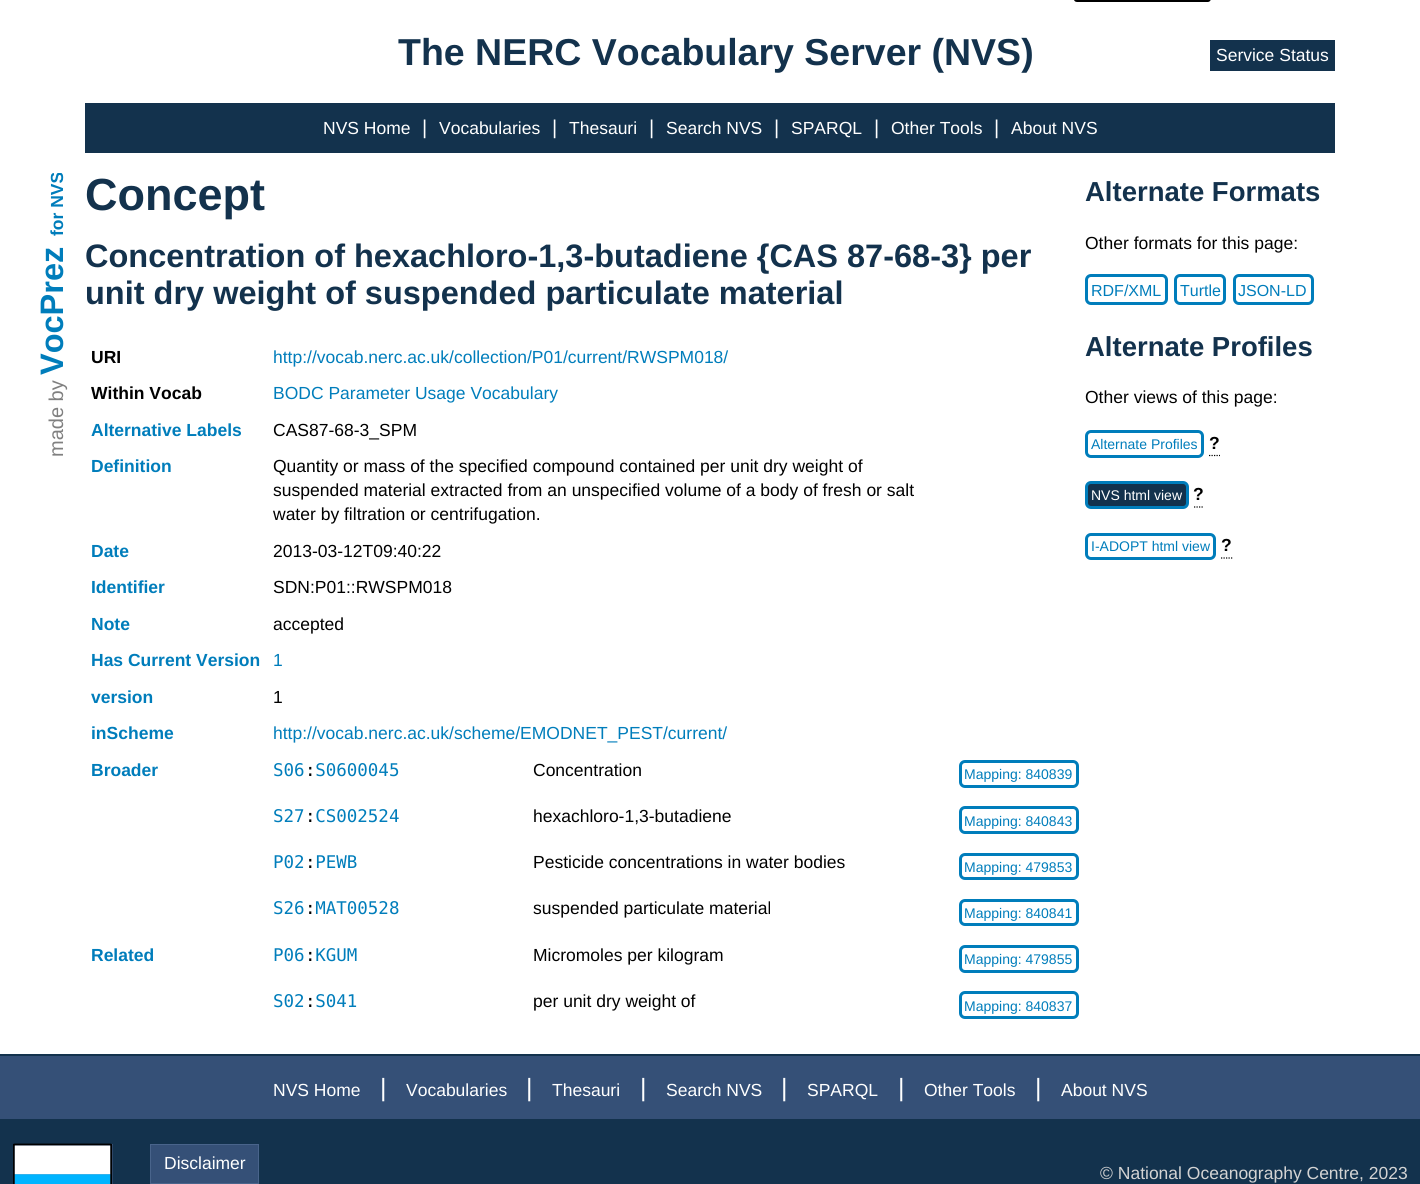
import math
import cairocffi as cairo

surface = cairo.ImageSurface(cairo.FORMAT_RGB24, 1420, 1184)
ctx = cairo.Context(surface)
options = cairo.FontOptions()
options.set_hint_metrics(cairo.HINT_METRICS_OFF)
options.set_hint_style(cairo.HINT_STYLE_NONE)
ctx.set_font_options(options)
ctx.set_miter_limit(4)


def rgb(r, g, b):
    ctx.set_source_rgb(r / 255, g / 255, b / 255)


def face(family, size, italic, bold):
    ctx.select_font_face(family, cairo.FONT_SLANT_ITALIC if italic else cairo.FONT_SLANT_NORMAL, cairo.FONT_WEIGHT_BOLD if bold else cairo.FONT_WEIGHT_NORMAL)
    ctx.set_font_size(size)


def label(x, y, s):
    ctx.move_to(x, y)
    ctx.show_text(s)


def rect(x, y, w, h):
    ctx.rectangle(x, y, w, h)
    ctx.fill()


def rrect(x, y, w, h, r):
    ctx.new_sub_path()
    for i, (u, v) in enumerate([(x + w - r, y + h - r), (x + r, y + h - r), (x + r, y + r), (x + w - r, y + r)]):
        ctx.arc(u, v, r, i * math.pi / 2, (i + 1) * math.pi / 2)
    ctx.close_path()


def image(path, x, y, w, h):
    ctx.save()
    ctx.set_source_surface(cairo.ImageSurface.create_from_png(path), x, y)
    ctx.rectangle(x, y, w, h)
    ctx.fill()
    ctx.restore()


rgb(255, 255, 255)
ctx.paint()
image('image0.png', 1074, 0, 137, 2)
face('Liberation Sans', 37.5, 0, 1)
rgb(19, 50, 77)
label(398, 65, 'The NERC Vocabulary Server (NVS)')
rect(1210, 40, 125, 31)
face('Liberation Sans', 17.5, 0, 0)
rgb(255, 255, 255)
label(1216, 61, 'Service Status')
rgb(19, 50, 77)
rect(85, 103, 1250, 50)
rgb(255, 255, 255)
label(323, 134, 'NVS Home')
face('Liberation Sans', 20, 0, 0)
label(422, 134, '|')
face('Liberation Sans', 17.5, 0, 0)
label(439, 134, 'Vocabularies')
face('Liberation Sans', 20, 0, 0)
label(552, 134, '|')
face('Liberation Sans', 17.5, 0, 0)
label(569, 134, 'Thesauri')
face('Liberation Sans', 20, 0, 0)
label(649, 134, '|')
face('Liberation Sans', 17.5, 0, 0)
label(666, 134, 'Search NVS')
face('Liberation Sans', 20, 0, 0)
label(774, 134, '|')
face('Liberation Sans', 17.5, 0, 0)
label(791, 134, 'SPARQL')
face('Liberation Sans', 20, 0, 0)
label(874, 134, '|')
face('Liberation Sans', 17.5, 0, 0)
label(891, 134, 'Other Tools')
face('Liberation Sans', 20, 0, 0)
label(994, 134, '|')
face('Liberation Sans', 17.5, 0, 0)
label(1011, 134, 'About NVS')
face('Liberation Sans', 17.5, 0, 1)
rgb(0, 125, 187)
ctx.save()
ctx.translate(63, 236)
ctx.rotate(-90 * math.pi / 180)
label(0, 0, 'for NVS')
ctx.restore()
face('Liberation Sans', 32.5, 0, 1)
ctx.save()
ctx.translate(63, 375)
ctx.rotate(-90 * math.pi / 180)
label(0, 0, 'VocPrez')
ctx.restore()
face('Liberation Sans', 20, 0, 0)
rgb(128, 128, 128)
ctx.save()
ctx.translate(63, 457)
ctx.rotate(-90 * math.pi / 180)
label(0, 0, 'made by')
ctx.restore()
face('Liberation Sans', 45, 0, 1)
rgb(19, 50, 77)
label(85, 210, 'Concept')
face('Liberation Sans', 32.5, 0, 1)
label(85, 267, 'Concentration of hexachloro-1,3-butadiene {CAS 87-68-3} per')
label(85, 304, 'unit dry weight of suspended particulate material')
face('Liberation Sans', 17.5, 0, 1)
rgb(0, 0, 0)
label(91, 363, 'URI')
face('Liberation Sans', 17.5, 0, 0)
rgb(0, 125, 187)
label(273, 363, 'http://vocab.nerc.ac.uk/collection/P01/current/RWSPM018/')
face('Liberation Sans', 17.5, 0, 1)
rgb(0, 0, 0)
label(91, 399, 'Within Vocab')
face('Liberation Sans', 17.5, 0, 0)
rgb(0, 125, 187)
label(273, 399, 'BODC Parameter Usage Vocabulary')
face('Liberation Sans', 17.5, 0, 1)
label(91, 436, 'Alternative Labels')
face('Liberation Sans', 17.5, 0, 0)
rgb(0, 0, 0)
label(273, 436, 'CAS87-68-3_SPM')
face('Liberation Sans', 17.5, 0, 1)
rgb(0, 125, 187)
label(91, 472, 'Definition')
face('Liberation Sans', 17.5, 0, 0)
rgb(0, 0, 0)
label(273, 472, 'Quantity or mass of the specified compound contained per unit dry weight of')
label(273, 496, 'suspended material extracted from an unspecified volume of a body of fresh or salt')
label(273, 520, 'water by filtration or centrifugation.')
face('Liberation Sans', 17.5, 0, 1)
rgb(0, 125, 187)
label(91, 557, 'Date')
face('Liberation Sans', 17.5, 0, 0)
rgb(0, 0, 0)
label(273, 557, '2013-03-12T09:40:22')
face('Liberation Sans', 17.5, 0, 1)
rgb(0, 125, 187)
label(91, 593, 'Identifier')
face('Liberation Sans', 17.5, 0, 0)
rgb(0, 0, 0)
label(273, 593, 'SDN:P01::RWSPM018')
face('Liberation Sans', 17.5, 0, 1)
rgb(0, 125, 187)
label(91, 630, 'Note')
face('Liberation Sans', 17.5, 0, 0)
rgb(0, 0, 0)
label(273, 630, 'accepted')
face('Liberation Sans', 17.5, 0, 1)
rgb(0, 125, 187)
label(91, 666, 'Has Current Version')
face('Liberation Sans', 17.5, 0, 0)
label(273, 666, '1')
face('Liberation Sans', 17.5, 0, 1)
label(91, 703, 'version')
face('Liberation Sans', 17.5, 0, 0)
rgb(0, 0, 0)
label(273, 703, '1')
face('Liberation Sans', 17.5, 0, 1)
rgb(0, 125, 187)
label(91, 739, 'inScheme')
face('Liberation Sans', 17.5, 0, 0)
label(273, 739, 'http://vocab.nerc.ac.uk/scheme/EMODNET_PEST/current/')
face('Liberation Sans', 17.5, 0, 1)
label(91, 776, 'Broader')
face('DejaVu Sans Mono', 17.5, 0, 0)
label(273, 776, 'S06 S0600045')
rgb(0, 0, 0)
label(305, 776, ':')
face('Liberation Sans', 17.5, 0, 0)
label(533, 776, 'Concentration')
rrect(960.5, 761.5, 117, 25, 4.5)
rgb(0, 125, 187)
ctx.set_line_width(3)
ctx.stroke()
face('Liberation Sans', 14, 0, 0)
label(964, 779, 'Mapping: 840839')
face('DejaVu Sans Mono', 17.5, 0, 0)
label(273, 822, 'S27 CS002524')
rgb(0, 0, 0)
label(305, 822, ':')
face('Liberation Sans', 17.5, 0, 0)
label(533, 822, 'hexachloro-1,3-butadiene')
rrect(960.5, 807.5, 117, 25, 4.5)
rgb(0, 125, 187)
ctx.stroke()
face('Liberation Sans', 14, 0, 0)
label(964, 826, 'Mapping: 840843')
face('DejaVu Sans Mono', 17.5, 0, 0)
label(273, 868, 'P02 PEWB')
rgb(0, 0, 0)
label(305, 868, ':')
face('Liberation Sans', 17.5, 0, 0)
label(533, 868, 'Pesticide concentrations in water bodies')
rrect(960.5, 854.5, 117, 24, 4.5)
rgb(0, 125, 187)
ctx.stroke()
face('Liberation Sans', 14, 0, 0)
label(964, 872, 'Mapping: 479853')
face('DejaVu Sans Mono', 17.5, 0, 0)
label(273, 914, 'S26 MAT00528')
rgb(0, 0, 0)
label(305, 914, ':')
face('Liberation Sans', 17.5, 0, 0)
label(533, 914, 'suspended particulate material')
rrect(960.5, 900.5, 117, 24, 4.5)
rgb(0, 125, 187)
ctx.stroke()
face('Liberation Sans', 14, 0, 0)
label(964, 918, 'Mapping: 840841')
face('Liberation Sans', 17.5, 0, 1)
label(91, 961, 'Related')
face('DejaVu Sans Mono', 17.5, 0, 0)
label(273, 961, 'P06 KGUM')
rgb(0, 0, 0)
label(305, 961, ':')
face('Liberation Sans', 17.5, 0, 0)
label(533, 961, 'Micromoles per kilogram')
rrect(960.5, 946.5, 117, 25, 4.5)
rgb(0, 125, 187)
ctx.stroke()
face('Liberation Sans', 14, 0, 0)
label(964, 964, 'Mapping: 479855')
face('DejaVu Sans Mono', 17.5, 0, 0)
label(273, 1007, 'S02 S041')
rgb(0, 0, 0)
label(305, 1007, ':')
face('Liberation Sans', 17.5, 0, 0)
label(533, 1007, 'per unit dry weight of')
rrect(960.5, 992.5, 117, 25, 4.5)
rgb(0, 125, 187)
ctx.stroke()
face('Liberation Sans', 14, 0, 0)
label(964, 1011, 'Mapping: 840837')
face('Liberation Sans', 27.5, 0, 1)
rgb(19, 50, 77)
label(1085, 201, 'Alternate Formats')
face('Liberation Sans', 17.5, 0, 0)
rgb(0, 0, 0)
label(1085, 249, 'Other formats for this page:')
rrect(1086.5, 275.5, 80, 28, 4.5)
rgb(0, 125, 187)
ctx.stroke()
face('Liberation Sans', 16, 0, 0)
label(1091, 296, 'RDF/XML')
rrect(1175.5, 275.5, 49, 28, 4.5)
ctx.stroke()
label(1180, 296, 'Turtle')
rrect(1234.5, 275.5, 78, 28, 4.5)
ctx.stroke()
label(1238, 296, 'JSON-LD')
face('Liberation Sans', 27.5, 0, 1)
rgb(19, 50, 77)
label(1085, 356, 'Alternate Profiles')
face('Liberation Sans', 17.5, 0, 0)
rgb(0, 0, 0)
label(1085, 403, 'Other views of this page:')
rrect(1086.5, 431.5, 116, 25, 4.5)
rgb(0, 125, 187)
ctx.stroke()
face('Liberation Sans', 14, 0, 0)
label(1091, 449, 'Alternate Profiles')
ctx.new_path()
ctx.move_to(1209, 455.5)
ctx.line_to(1220, 455.5)
rgb(0, 0, 0)
ctx.set_line_width(1.2)
ctx.set_dash([1.25, 1.25])
ctx.stroke()
face('Liberation Sans', 17.5, 0, 1)
label(1209, 449, '?')
rgb(19, 50, 77)
rrect(1086.5, 482.5, 101, 25, 4.5)
ctx.fill_preserve()
rgb(0, 125, 187)
ctx.set_line_width(3)
ctx.set_dash([])
ctx.stroke()
face('Liberation Sans', 14, 0, 0)
rgb(255, 255, 255)
label(1091, 500, 'NVS html view')
ctx.new_path()
ctx.move_to(1194, 507)
ctx.line_to(1204, 507)
rgb(0, 0, 0)
ctx.set_line_width(1.2)
ctx.set_dash([1.25, 1.25])
ctx.stroke()
face('Liberation Sans', 17.5, 0, 1)
label(1193, 500, '?')
rrect(1086.5, 534.5, 128, 24, 4.5)
rgb(0, 125, 187)
ctx.set_line_width(3)
ctx.set_dash([])
ctx.stroke()
face('Liberation Sans', 14, 0, 0)
label(1091, 551, 'I-ADOPT html view')
ctx.new_path()
ctx.move_to(1221, 558)
ctx.line_to(1232.5, 558)
rgb(0, 0, 0)
ctx.set_line_width(1.2)
ctx.set_dash([1.25, 1.25])
ctx.stroke()
face('Liberation Sans', 17.5, 0, 1)
label(1221, 551, '?')
rgb(19, 50, 77)
rect(0, 1054, 1420, 2)
rgb(53, 80, 119)
rect(0, 1056, 1420, 63)
face('Liberation Sans', 17.5, 0, 0)
rgb(255, 255, 255)
label(273, 1096, 'NVS Home')
face('Liberation Sans', 25, 0, 0)
label(380, 1096, '|')
face('Liberation Sans', 17.5, 0, 0)
label(406, 1096, 'Vocabularies')
face('Liberation Sans', 25, 0, 0)
label(526, 1096, '|')
face('Liberation Sans', 17.5, 0, 0)
label(552, 1096, 'Thesauri')
face('Liberation Sans', 25, 0, 0)
label(640, 1096, '|')
face('Liberation Sans', 17.5, 0, 0)
label(666, 1096, 'Search NVS')
face('Liberation Sans', 25, 0, 0)
label(781, 1096, '|')
face('Liberation Sans', 17.5, 0, 0)
label(807, 1096, 'SPARQL')
face('Liberation Sans', 25, 0, 0)
label(898, 1096, '|')
face('Liberation Sans', 17.5, 0, 0)
label(924, 1096, 'Other Tools')
face('Liberation Sans', 25, 0, 0)
label(1035, 1096, '|')
face('Liberation Sans', 17.5, 0, 0)
label(1061, 1096, 'About NVS')
rgb(19, 50, 77)
rect(0, 1119, 1420, 65)
rgb(53, 80, 119)
rect(14, 1144, 99, 40)
image('image1.png', 13, 1143, 100, 41)
ctx.rectangle(150.5, 1144.5, 108, 39)
ctx.fill_preserve()
rgb(73, 100, 139)
ctx.set_line_width(1)
ctx.set_dash([])
ctx.stroke()
rgb(255, 255, 255)
label(164, 1169, 'Disclaimer')
rgb(211, 211, 211)
label(1100, 1179, '© National Oceanography Centre, 2023')
surface.write_to_png('render.png')
